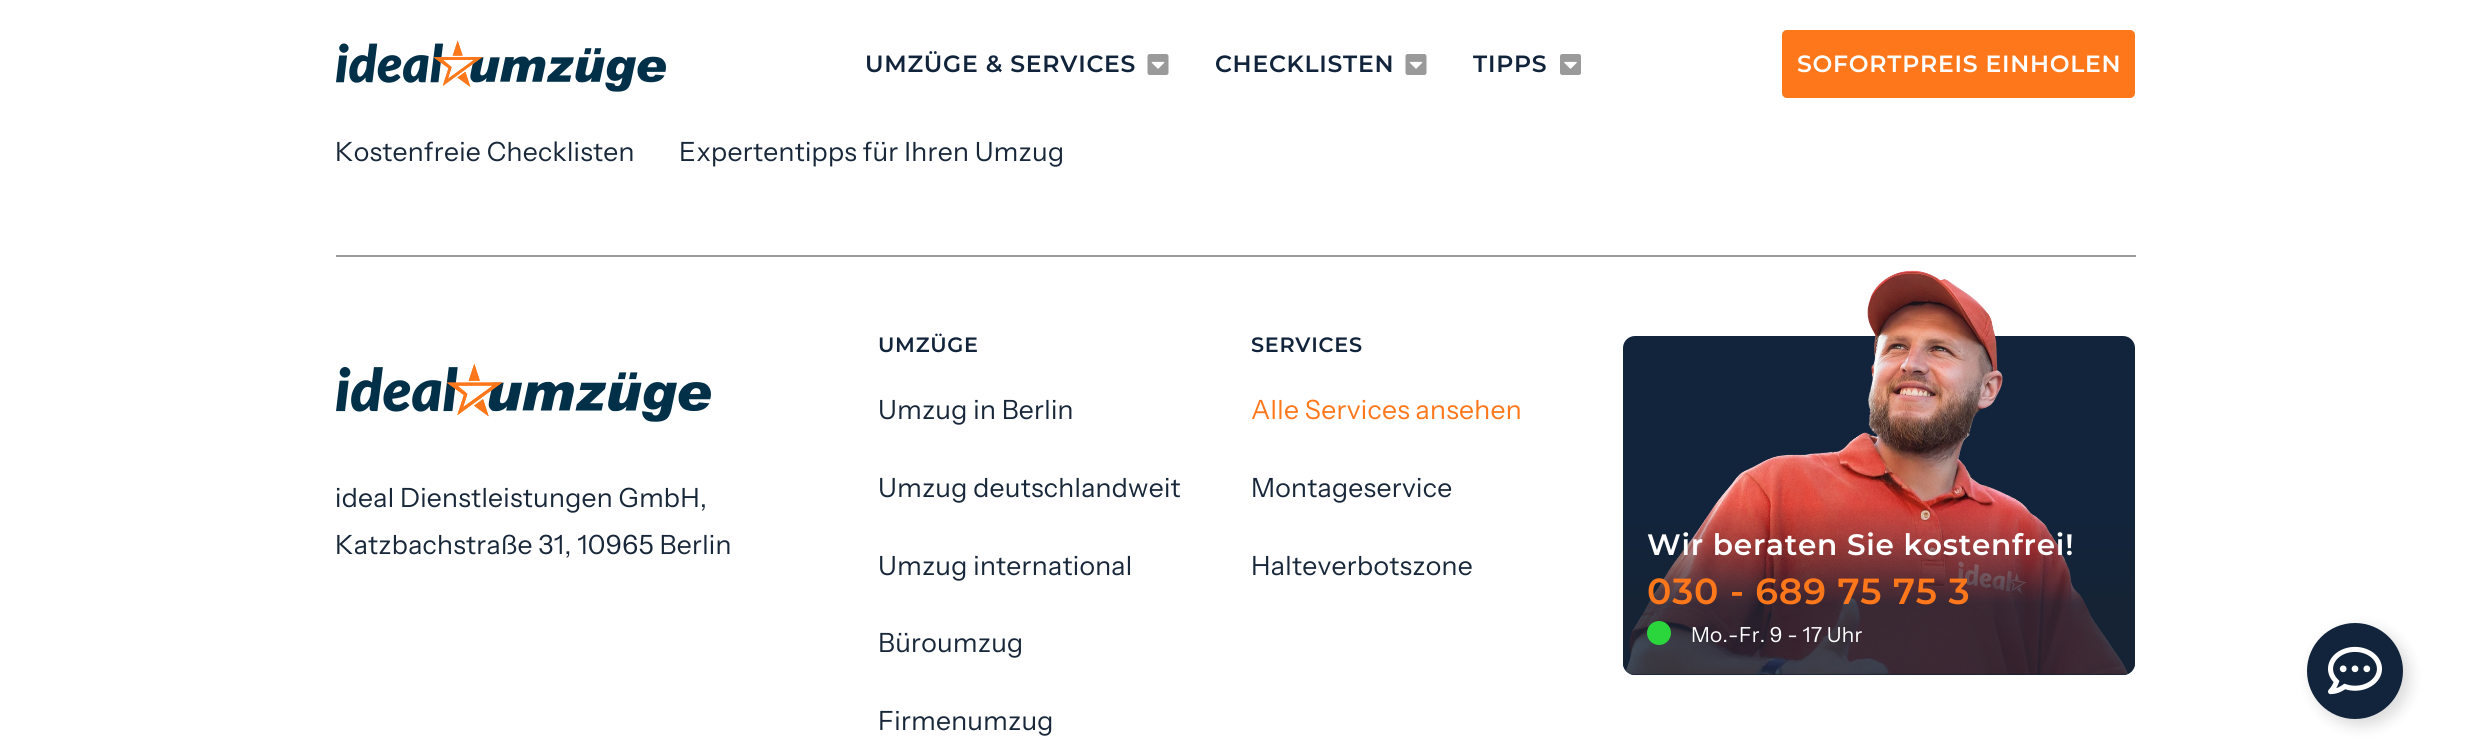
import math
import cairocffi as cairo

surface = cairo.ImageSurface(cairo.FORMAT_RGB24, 2470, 755)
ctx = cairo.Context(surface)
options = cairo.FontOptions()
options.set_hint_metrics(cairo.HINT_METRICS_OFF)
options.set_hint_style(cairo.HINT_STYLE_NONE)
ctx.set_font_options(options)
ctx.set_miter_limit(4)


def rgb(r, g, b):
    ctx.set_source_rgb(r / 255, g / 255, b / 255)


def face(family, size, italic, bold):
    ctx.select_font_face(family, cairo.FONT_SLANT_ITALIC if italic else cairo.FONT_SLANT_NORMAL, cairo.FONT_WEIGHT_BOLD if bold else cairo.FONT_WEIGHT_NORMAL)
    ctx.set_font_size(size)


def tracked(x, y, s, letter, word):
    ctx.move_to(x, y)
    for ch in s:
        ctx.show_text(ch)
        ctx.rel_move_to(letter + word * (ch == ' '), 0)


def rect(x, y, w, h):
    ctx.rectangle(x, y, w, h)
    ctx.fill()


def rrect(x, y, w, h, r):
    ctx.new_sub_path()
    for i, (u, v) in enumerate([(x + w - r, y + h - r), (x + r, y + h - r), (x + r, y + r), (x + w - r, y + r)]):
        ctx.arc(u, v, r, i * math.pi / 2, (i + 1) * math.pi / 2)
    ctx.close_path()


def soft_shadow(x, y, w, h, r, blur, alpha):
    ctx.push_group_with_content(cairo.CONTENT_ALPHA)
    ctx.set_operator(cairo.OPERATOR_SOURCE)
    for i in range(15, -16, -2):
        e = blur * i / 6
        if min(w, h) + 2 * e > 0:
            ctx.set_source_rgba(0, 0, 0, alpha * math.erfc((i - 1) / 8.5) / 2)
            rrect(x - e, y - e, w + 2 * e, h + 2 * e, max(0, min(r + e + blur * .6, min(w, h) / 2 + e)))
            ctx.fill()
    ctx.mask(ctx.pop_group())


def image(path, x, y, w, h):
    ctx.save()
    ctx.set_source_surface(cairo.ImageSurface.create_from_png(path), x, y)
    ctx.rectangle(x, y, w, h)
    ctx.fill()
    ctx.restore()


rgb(255, 255, 255)
ctx.paint()
image('image0.png', 336, 40, 330, 52)
face('Montserrat SemiBold', 23.5, 0, 0)
rgb(17, 36, 60)
tracked(865, 72, 'UMZÜGE & SERVICES', 0.75, 0)
image('image1.png', 1147, 54, 22, 21)
tracked(1215, 72, 'CHECKLISTEN', 0.75, 0)
image('image1.png', 1405, 54, 22, 21)
tracked(1473, 72, 'TIPPS', 0.75, 0)
image('image2.png', 1560, 54, 21, 21)
rgb(255, 119, 27)
rrect(1782, 30, 353, 68, 5)
ctx.fill()
rgb(255, 255, 255)
tracked(1797, 72, 'SOFORTPREIS EINHOLEN', 0.75, 0)
face('Instrument Sans', 26.5, 0, 0)
rgb(24, 39, 57)
tracked(335, 161, 'Kostenfreie Checklisten', 0.3, 0)
tracked(679, 161, 'Expertentipps für Ihren Umzug', 0.3, 0)
rgb(154, 154, 154)
rect(336, 255, 1800, 2)
image('image3.png', 336, 363, 375, 59)
rgb(24, 39, 57)
tracked(335, 507, 'ideal Dienstleistungen GmbH,', 0.3, 0)
tracked(335, 554, 'Katzbachstraße 31, 10965 Berlin', 0.3, 0)
face('Montserrat SemiBold', 20.75, 0, 0)
rgb(17, 36, 60)
tracked(878, 352, 'UMZÜGE', 0.75, 0)
face('Instrument Sans', 26.5, 0, 0)
rgb(24, 39, 57)
tracked(878, 419, 'Umzug in Berlin', 0.3, 0)
tracked(878, 497, 'Umzug deutschlandweit', 0.3, 0)
tracked(878, 575, 'Umzug international', 0.3, 0)
tracked(878, 652, 'Büroumzug', 0.3, 0)
tracked(878, 730, 'Firmenumzug', 0.3, 0)
face('Montserrat SemiBold', 20.75, 0, 0)
rgb(17, 36, 60)
tracked(1251, 352, 'SERVICES', 0.75, 0)
face('Instrument Sans', 26.5, 0, 0)
rgb(255, 119, 27)
tracked(1251, 419, 'Alle Services ansehen', 0.3, 0)
rgb(24, 39, 57)
tracked(1251, 497, 'Montageservice', 0.3, 0)
tracked(1251, 575, 'Halteverbotszone', 0.3, 0)
rgb(17, 36, 60)
rrect(1623, 336, 512, 339, 12)
ctx.fill()
gradient = cairo.LinearGradient(1879, 675, 1879, 336)
gradient.add_color_stop_rgba(0.38, 0.067, 0.141, 0.235, 0.7)
gradient.add_color_stop_rgba(0.54, 0.067, 0.141, 0.235, 0)
ctx.set_source(gradient)
rrect(1623, 336, 512, 339, 12)
ctx.fill()
image('image4.png', 1626, 270, 502, 405)
gradient = cairo.LinearGradient(1879, 504, 1879, 675)
gradient.add_color_stop_rgba(0, 0.086, 0.137, 0.2, 0)
gradient.add_color_stop_rgba(0.58, 0.086, 0.137, 0.2, 0.81)
ctx.set_source(gradient)
ctx.new_path()
ctx.move_to(1623, 504)
ctx.line_to(2135, 504)
ctx.line_to(2135, 663)
ctx.curve_to(2135, 669.5, 2129.5, 675, 2123, 675)
ctx.line_to(1635, 675)
ctx.curve_to(1628.5, 675, 1623, 669.5, 1623, 663)
ctx.close_path()
ctx.fill()
face('Montserrat SemiBold', 29.5, 0, 0)
rgb(255, 255, 255)
tracked(1647, 555, 'Wir beraten Sie kostenfrei!', 0.75, 0)
face('Montserrat SemiBold', 36.25, 0, 0)
rgb(255, 119, 27)
tracked(1647, 604, '030 - 689 75 75 3', 0.75, 0)
rgb(43, 213, 60)
ctx.new_path()
ctx.arc(1659, 633, 12, 0, 2 * math.pi)
ctx.fill()
face('Instrument Sans', 20.75, 0, 0)
rgb(255, 255, 255)
tracked(1691, 642, 'Mo.-Fr. 9 - 17 Uhr', 0.3, 0)
rgb(0, 0, 0)
soft_shadow(2313, 629, 96, 96, 48, 7.5, 0.15)
rgb(17, 36, 60)
ctx.arc(2355, 671, 48, 0, 2 * math.pi)
ctx.fill()
image('image5.png', 2328, 646, 54, 49)
surface.write_to_png('render.png')
